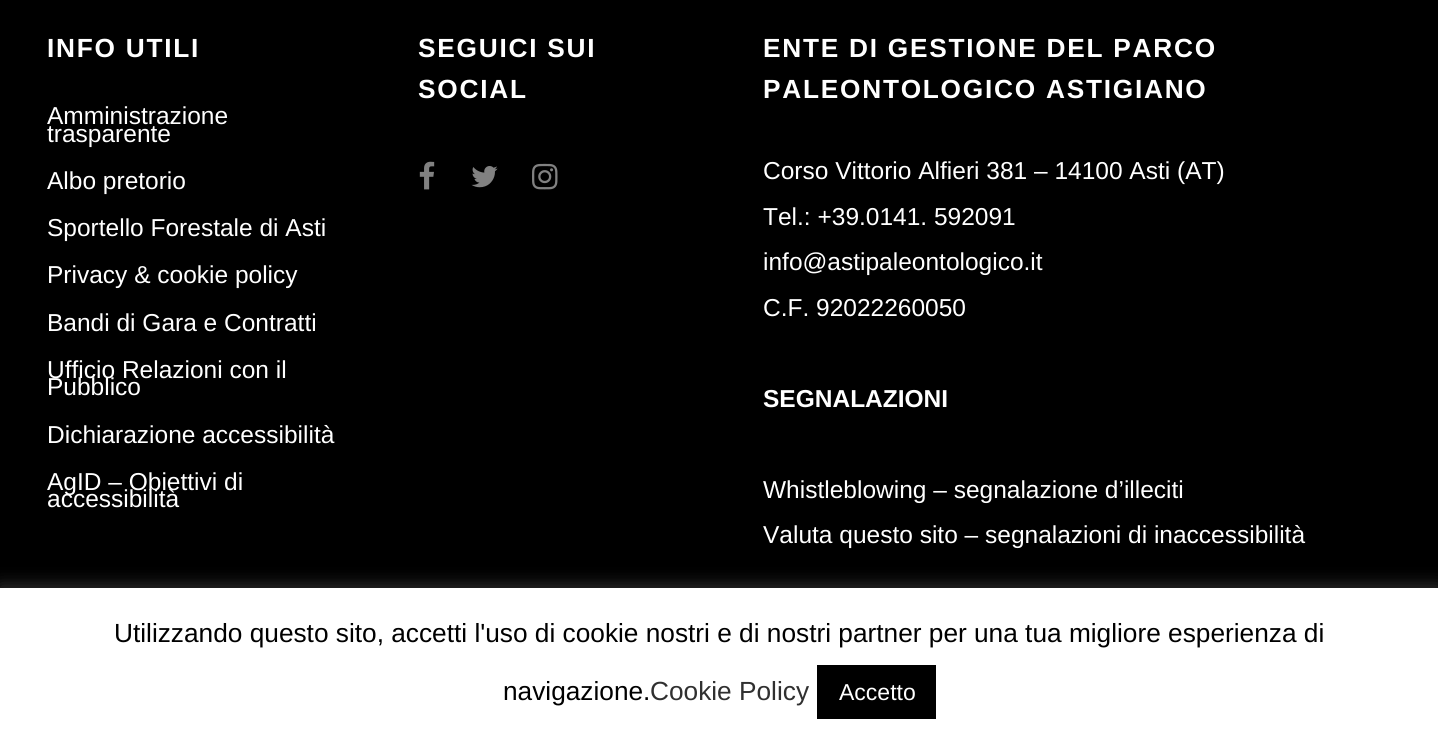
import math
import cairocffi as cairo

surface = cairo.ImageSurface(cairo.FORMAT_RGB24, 1438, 739)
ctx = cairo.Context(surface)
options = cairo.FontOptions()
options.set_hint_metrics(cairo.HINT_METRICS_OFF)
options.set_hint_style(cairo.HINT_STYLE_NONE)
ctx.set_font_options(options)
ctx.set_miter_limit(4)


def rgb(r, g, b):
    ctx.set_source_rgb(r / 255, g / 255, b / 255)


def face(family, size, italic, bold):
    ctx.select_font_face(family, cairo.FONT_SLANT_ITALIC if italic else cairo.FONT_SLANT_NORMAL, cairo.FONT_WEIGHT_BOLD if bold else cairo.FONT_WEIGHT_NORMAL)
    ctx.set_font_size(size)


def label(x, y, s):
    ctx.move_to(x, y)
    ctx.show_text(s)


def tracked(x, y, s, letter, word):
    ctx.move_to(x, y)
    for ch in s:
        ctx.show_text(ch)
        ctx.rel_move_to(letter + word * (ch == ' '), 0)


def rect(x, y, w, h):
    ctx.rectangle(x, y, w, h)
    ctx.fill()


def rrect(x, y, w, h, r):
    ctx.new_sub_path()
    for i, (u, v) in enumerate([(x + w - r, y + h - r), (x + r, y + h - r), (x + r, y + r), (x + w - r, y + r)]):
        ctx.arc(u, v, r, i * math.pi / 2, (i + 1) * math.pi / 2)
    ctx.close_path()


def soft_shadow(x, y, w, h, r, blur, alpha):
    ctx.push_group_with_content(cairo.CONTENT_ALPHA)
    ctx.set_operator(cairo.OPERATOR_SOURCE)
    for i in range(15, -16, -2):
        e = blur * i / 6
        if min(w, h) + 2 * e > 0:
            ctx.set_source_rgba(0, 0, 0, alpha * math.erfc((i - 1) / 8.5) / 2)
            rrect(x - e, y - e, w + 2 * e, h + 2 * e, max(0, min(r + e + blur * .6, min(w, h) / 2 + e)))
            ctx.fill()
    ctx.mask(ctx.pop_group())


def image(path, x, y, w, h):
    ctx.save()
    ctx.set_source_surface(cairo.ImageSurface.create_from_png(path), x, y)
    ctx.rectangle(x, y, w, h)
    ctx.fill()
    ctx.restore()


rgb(0, 0, 0)
ctx.paint()
face('Liberation Sans', 26.25, 0, 1)
rgb(255, 255, 255)
tracked(47, 57, 'INFO UTILI', 1.75, 0)
face('Liberation Sans', 24.5, 0, 0)
label(47, 124, 'Amministrazione')
label(47, 142, 'trasparente')
label(47, 189, 'Albo pretorio')
label(47, 236, 'Sportello Forestale di Asti')
label(47, 283, 'Privacy & cookie policy')
label(47, 331, 'Bandi di Gara e Contratti')
label(47, 378, 'Ufficio Relazioni con il')
label(47, 395, 'Pubblico')
label(47, 443, 'Dichiarazione accessibilità')
label(47, 490, 'AgID – Obiettivi di')
label(47, 507, 'accessibilità')
face('Liberation Sans', 26.25, 0, 1)
tracked(418, 57, 'SEGUICI SUI', 1.75, 0)
tracked(418, 98, 'SOCIAL', 1.75, 0)
image('image0.png', 419, 161, 16, 29)
image('image1.png', 471, 166, 27, 22)
image('image2.png', 532, 163, 26, 27)
tracked(763, 57, 'ENTE DI GESTIONE DEL PARCO', 1.75, 0)
tracked(763, 98, 'PALEONTOLOGICO ASTIGIANO', 1.75, 0)
face('Liberation Sans', 24.5, 0, 0)
label(763, 179, 'Corso Vittorio Alfieri 381 – 14100 Asti (AT)')
label(763, 225, 'Tel.: +39.0141. 592091')
label(763, 270, 'info@astipaleontologico.it')
label(763, 316, 'C.F. 92022260050')
face('Liberation Sans', 24.5, 0, 1)
label(763, 407, 'SEGNALAZIONI')
face('Liberation Sans', 24.5, 0, 0)
label(763, 498, 'Whistleblowing – segnalazione d’illeciti')
label(763, 543, 'Valuta questo sito – segnalazioni di inaccessibilità')
rgb(172, 171, 171)
soft_shadow(0, 586, 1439, 153, 0, 9, 0.3)
rgb(255, 255, 255)
rect(0, 588, 1438, 151)
face('Liberation Sans', 26.25, 0, 0)
rgb(0, 0, 0)
label(114, 642, 'Utilizzando questo sito, accetti l\'uso di cookie nostri e di nostri partner per una tua migliore esperienza di')
label(503, 700, 'navigazione.')
rgb(48, 48, 48)
label(650, 700, 'Cookie Policy')
rgb(0, 0, 0)
rect(817, 665, 119, 54)
face('Liberation Sans', 23, 0, 0)
rgb(255, 255, 255)
label(839, 700, 'Accetto')
surface.write_to_png('render.png')
